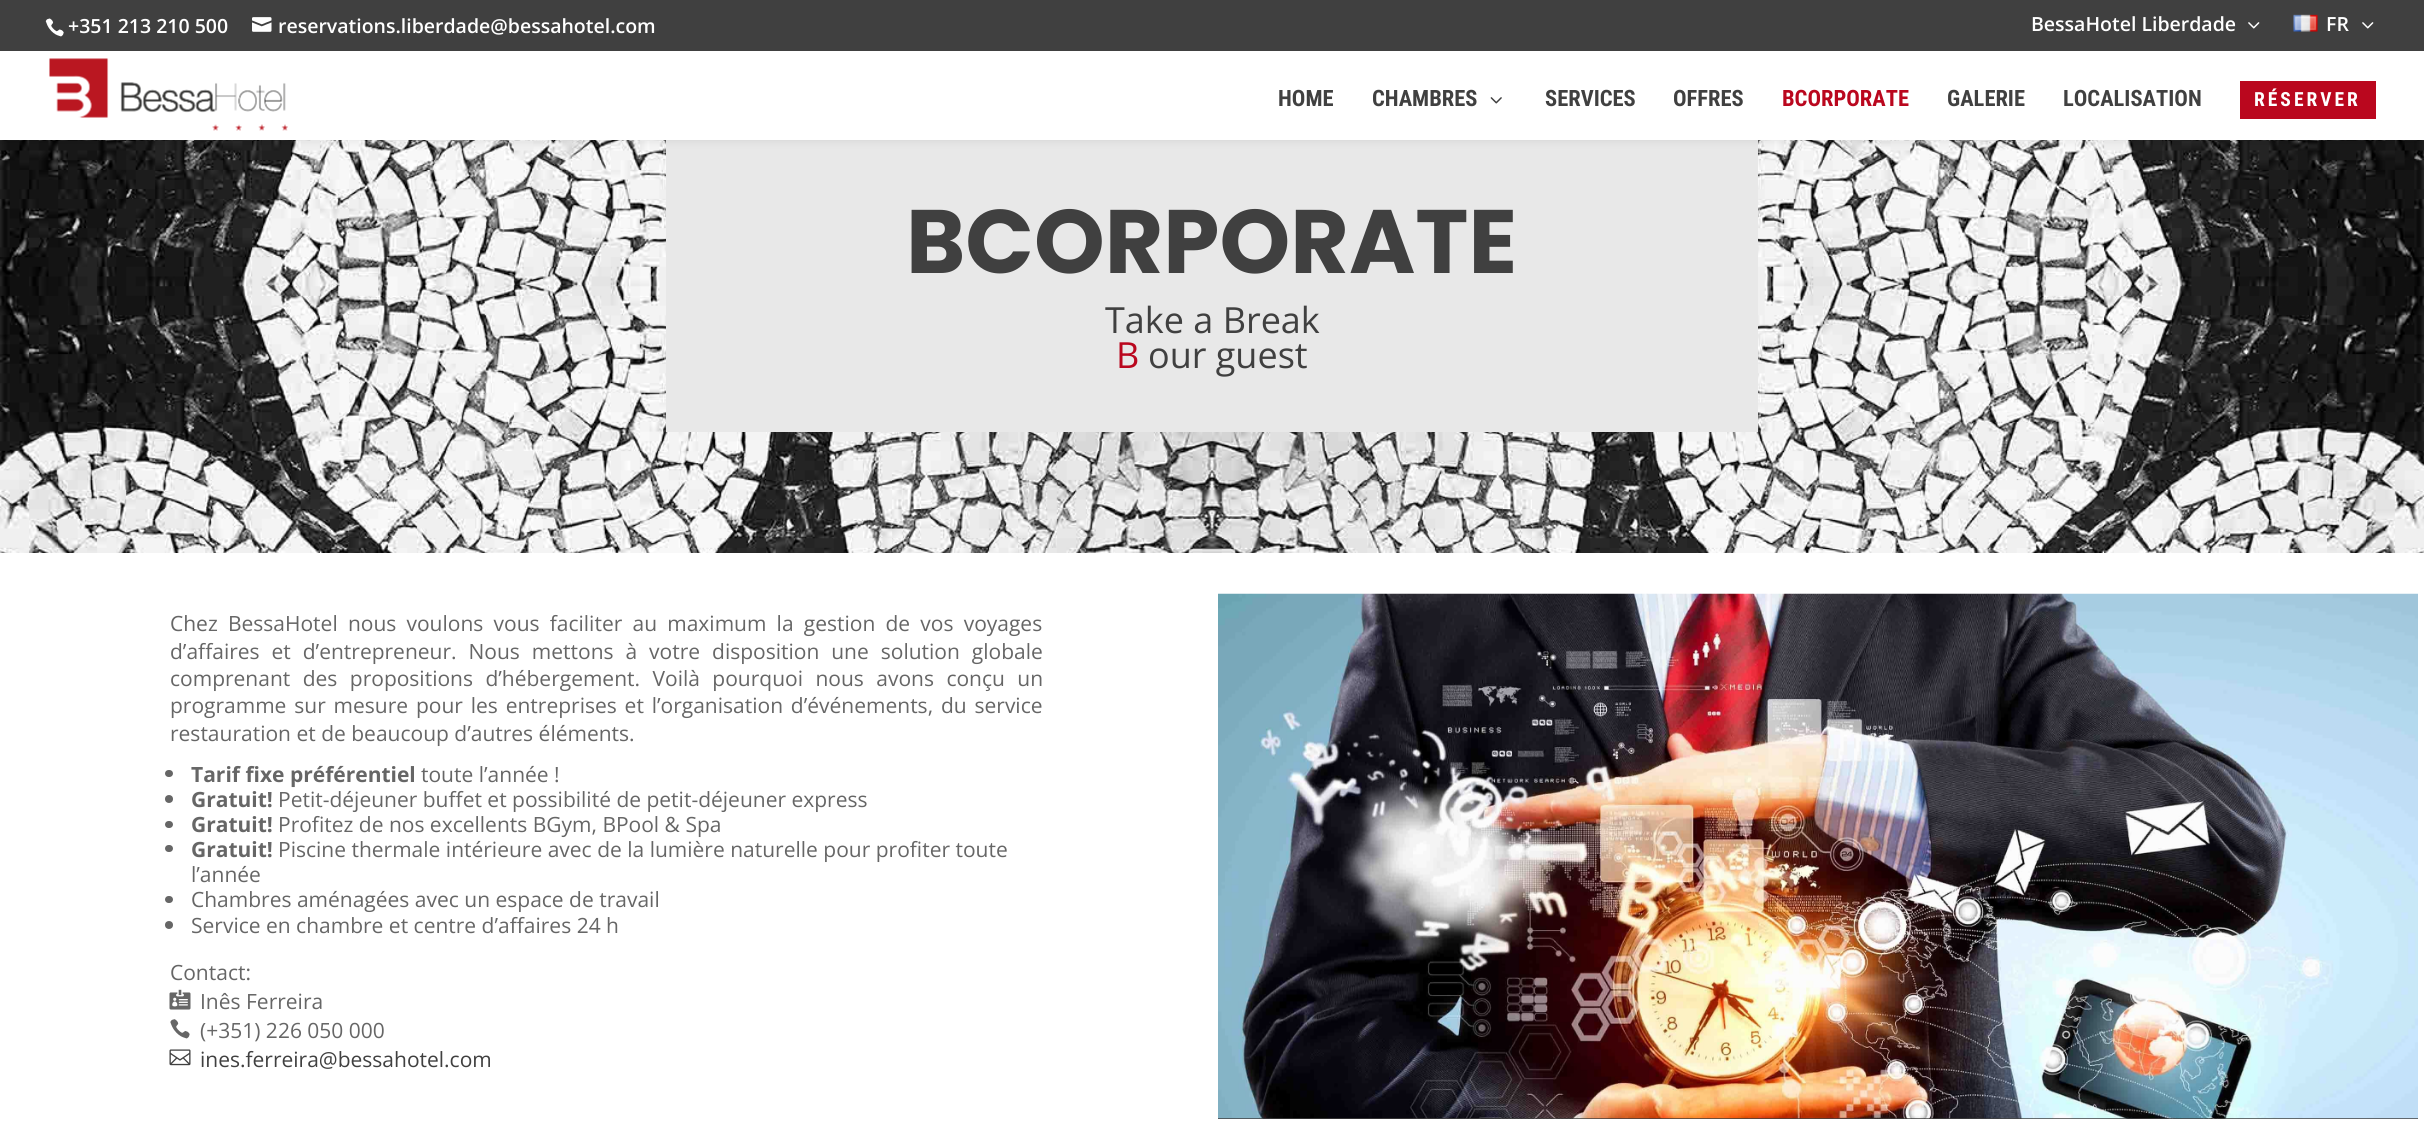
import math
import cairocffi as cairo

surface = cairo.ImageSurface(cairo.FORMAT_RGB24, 2424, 1141)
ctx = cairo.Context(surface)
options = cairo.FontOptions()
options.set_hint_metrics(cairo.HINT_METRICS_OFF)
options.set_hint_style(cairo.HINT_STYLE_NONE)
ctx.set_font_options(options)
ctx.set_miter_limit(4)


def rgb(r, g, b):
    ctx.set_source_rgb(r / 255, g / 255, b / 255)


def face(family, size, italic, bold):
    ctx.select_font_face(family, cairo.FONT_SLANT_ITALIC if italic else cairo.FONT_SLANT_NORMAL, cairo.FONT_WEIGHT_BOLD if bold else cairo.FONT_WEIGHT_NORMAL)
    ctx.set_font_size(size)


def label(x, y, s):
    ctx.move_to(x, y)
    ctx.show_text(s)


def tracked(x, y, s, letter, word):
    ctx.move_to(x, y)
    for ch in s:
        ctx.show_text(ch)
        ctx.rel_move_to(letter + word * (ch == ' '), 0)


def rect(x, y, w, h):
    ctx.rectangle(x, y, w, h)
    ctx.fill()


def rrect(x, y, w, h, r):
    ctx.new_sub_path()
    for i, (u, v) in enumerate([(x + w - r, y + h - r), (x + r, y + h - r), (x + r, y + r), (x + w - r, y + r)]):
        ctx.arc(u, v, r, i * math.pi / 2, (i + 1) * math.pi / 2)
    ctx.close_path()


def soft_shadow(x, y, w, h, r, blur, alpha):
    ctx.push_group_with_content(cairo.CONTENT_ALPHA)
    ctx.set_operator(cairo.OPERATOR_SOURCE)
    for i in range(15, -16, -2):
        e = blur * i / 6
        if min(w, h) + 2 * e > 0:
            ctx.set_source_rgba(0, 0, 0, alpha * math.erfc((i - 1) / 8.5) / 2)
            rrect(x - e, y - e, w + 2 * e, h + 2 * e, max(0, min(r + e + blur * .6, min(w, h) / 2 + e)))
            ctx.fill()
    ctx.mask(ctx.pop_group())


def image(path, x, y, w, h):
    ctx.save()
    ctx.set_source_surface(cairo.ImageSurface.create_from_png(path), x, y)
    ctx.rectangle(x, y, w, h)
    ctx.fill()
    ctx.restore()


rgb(255, 255, 255)
ctx.paint()
image('image6.png', 0, 140, 2424, 413)
rgb(232, 232, 232)
rect(666, 140, 1092, 292)
rgb(0, 0, 0)
soft_shadow(0, 51, 2424, 89, 0, 5, 0.1)
rgb(64, 64, 64)
rect(0, 0, 2424, 51)
image('image0.png', 45, 18, 19, 19)
face('Open Sans SemiBold', 19.5, 0, 0)
rgb(255, 255, 255)
label(68, 33, '+351 213 210 500')
image('image1.png', 252, 17, 20, 15)
label(278, 33, 'reservations.liberdade@bessahotel.com')
label(2031, 31, 'BessaHotel Liberdade')
image('image2.png', 2248, 22, 12, 7)
image('image3.png', 2293, 14, 25, 18)
label(2326, 31, 'FR')
image('image2.png', 2362, 22, 12, 7)
rect(0, 51, 2424, 89)
image('image4.png', 49, 58, 239, 73)
face('Roboto Condensed', 22.5, 0, 1)
rgb(64, 64, 64)
label(1278, 106, 'HOME')
label(1372, 106, 'CHAMBRES')
image('image5.png', 1490, 97, 12, 7)
label(1545, 106, 'SERVICES')
label(1673, 106, 'OFFRES')
rgb(186, 7, 30)
label(1782, 106, 'BCORPORATE')
rgb(64, 64, 64)
label(1947, 106, 'GALERIE')
label(2063, 106, 'LOCALISATION')
rgb(186, 7, 30)
rect(2240, 81, 136, 38)
face('Roboto Condensed', 19.5, 0, 1)
rgb(255, 255, 255)
tracked(2254, 106, 'RÉSERVER', 3, 0)
face('Poppins', 90, 0, 1)
rgb(64, 64, 64)
label(906, 273, 'BCORPORATE')
face('Open Sans', 36, 0, 0)
label(1105, 333, 'Take a Break')
rgb(186, 7, 30)
label(1116, 368, 'B')
rgb(64, 64, 64)
label(1148, 368, 'our guest')
face('Open Sans', 21, 0, 0)
rgb(102, 102, 102)
tracked(170, 631, 'Chez BessaHotel nous voulons vous faciliter au maximum la gestion de vos voyages', 0, 4.75)
tracked(170, 659, 'd’affaires et d’entrepreneur. Nous mettons à votre disposition une solution globale', 0, 6.5)
tracked(170, 686, 'comprenant des propositions d’hébergement. Voilà pourquoi nous avons conçu un', 0, 7)
tracked(170, 713, 'programme sur mesure pour les entreprises et l’organisation d’événements, du service', 0, 2.4)
label(170, 741, 'restauration et de beaucoup d’autres éléments.')
rrect(165, 770, 8, 7, 3.5)
ctx.fill()
face('Open Sans', 21, 0, 1)
label(191, 782, 'Tarif fixe préférentiel')
face('Open Sans', 21, 0, 0)
label(421, 782, 'toute l’année !')
ctx.new_path()
ctx.arc(169, 799, 4, 0, 2 * math.pi)
ctx.fill()
face('Open Sans', 21, 0, 1)
label(191, 807, 'Gratuit!')
face('Open Sans', 21, 0, 0)
label(278, 807, 'Petit-déjeuner buffet et possibilité de petit-déjeuner express')
rrect(165, 821, 8, 7, 3.5)
ctx.fill()
face('Open Sans', 21, 0, 1)
label(191, 832, 'Gratuit!')
face('Open Sans', 21, 0, 0)
label(278, 832, 'Profitez de nos excellents BGym, BPool & Spa')
rrect(165, 845, 8, 7, 3.5)
ctx.fill()
face('Open Sans', 21, 0, 1)
label(191, 857, 'Gratuit!')
face('Open Sans', 21, 0, 0)
label(278, 857, 'Piscine thermale intérieure avec de la lumière naturelle pour profiter toute')
label(191, 882, 'l’année')
rrect(165, 896, 8, 7, 3.5)
ctx.fill()
label(191, 907, 'Chambres aménagées avec un espace de travail')
ctx.new_path()
ctx.arc(169, 925, 4, 0, 2 * math.pi)
ctx.fill()
label(191, 933, 'Service en chambre et centre d’affaires 24 h')
label(170, 980, 'Contact:')
image('image7.png', 169, 989, 22, 21)
label(200, 1009, 'Inês Ferreira')
image('image8.png', 170, 1019, 20, 20)
label(200, 1038, '(+351) 226 050 000')
image('image9.png', 169, 1049, 22, 17)
rgb(64, 64, 64)
label(200, 1067, 'ines.ferreira@bessahotel.com')
rect(1218, 1118, 1200, 1)
image('image10.png', 1218, 593, 1200, 526)
surface.write_to_png('render.png')
